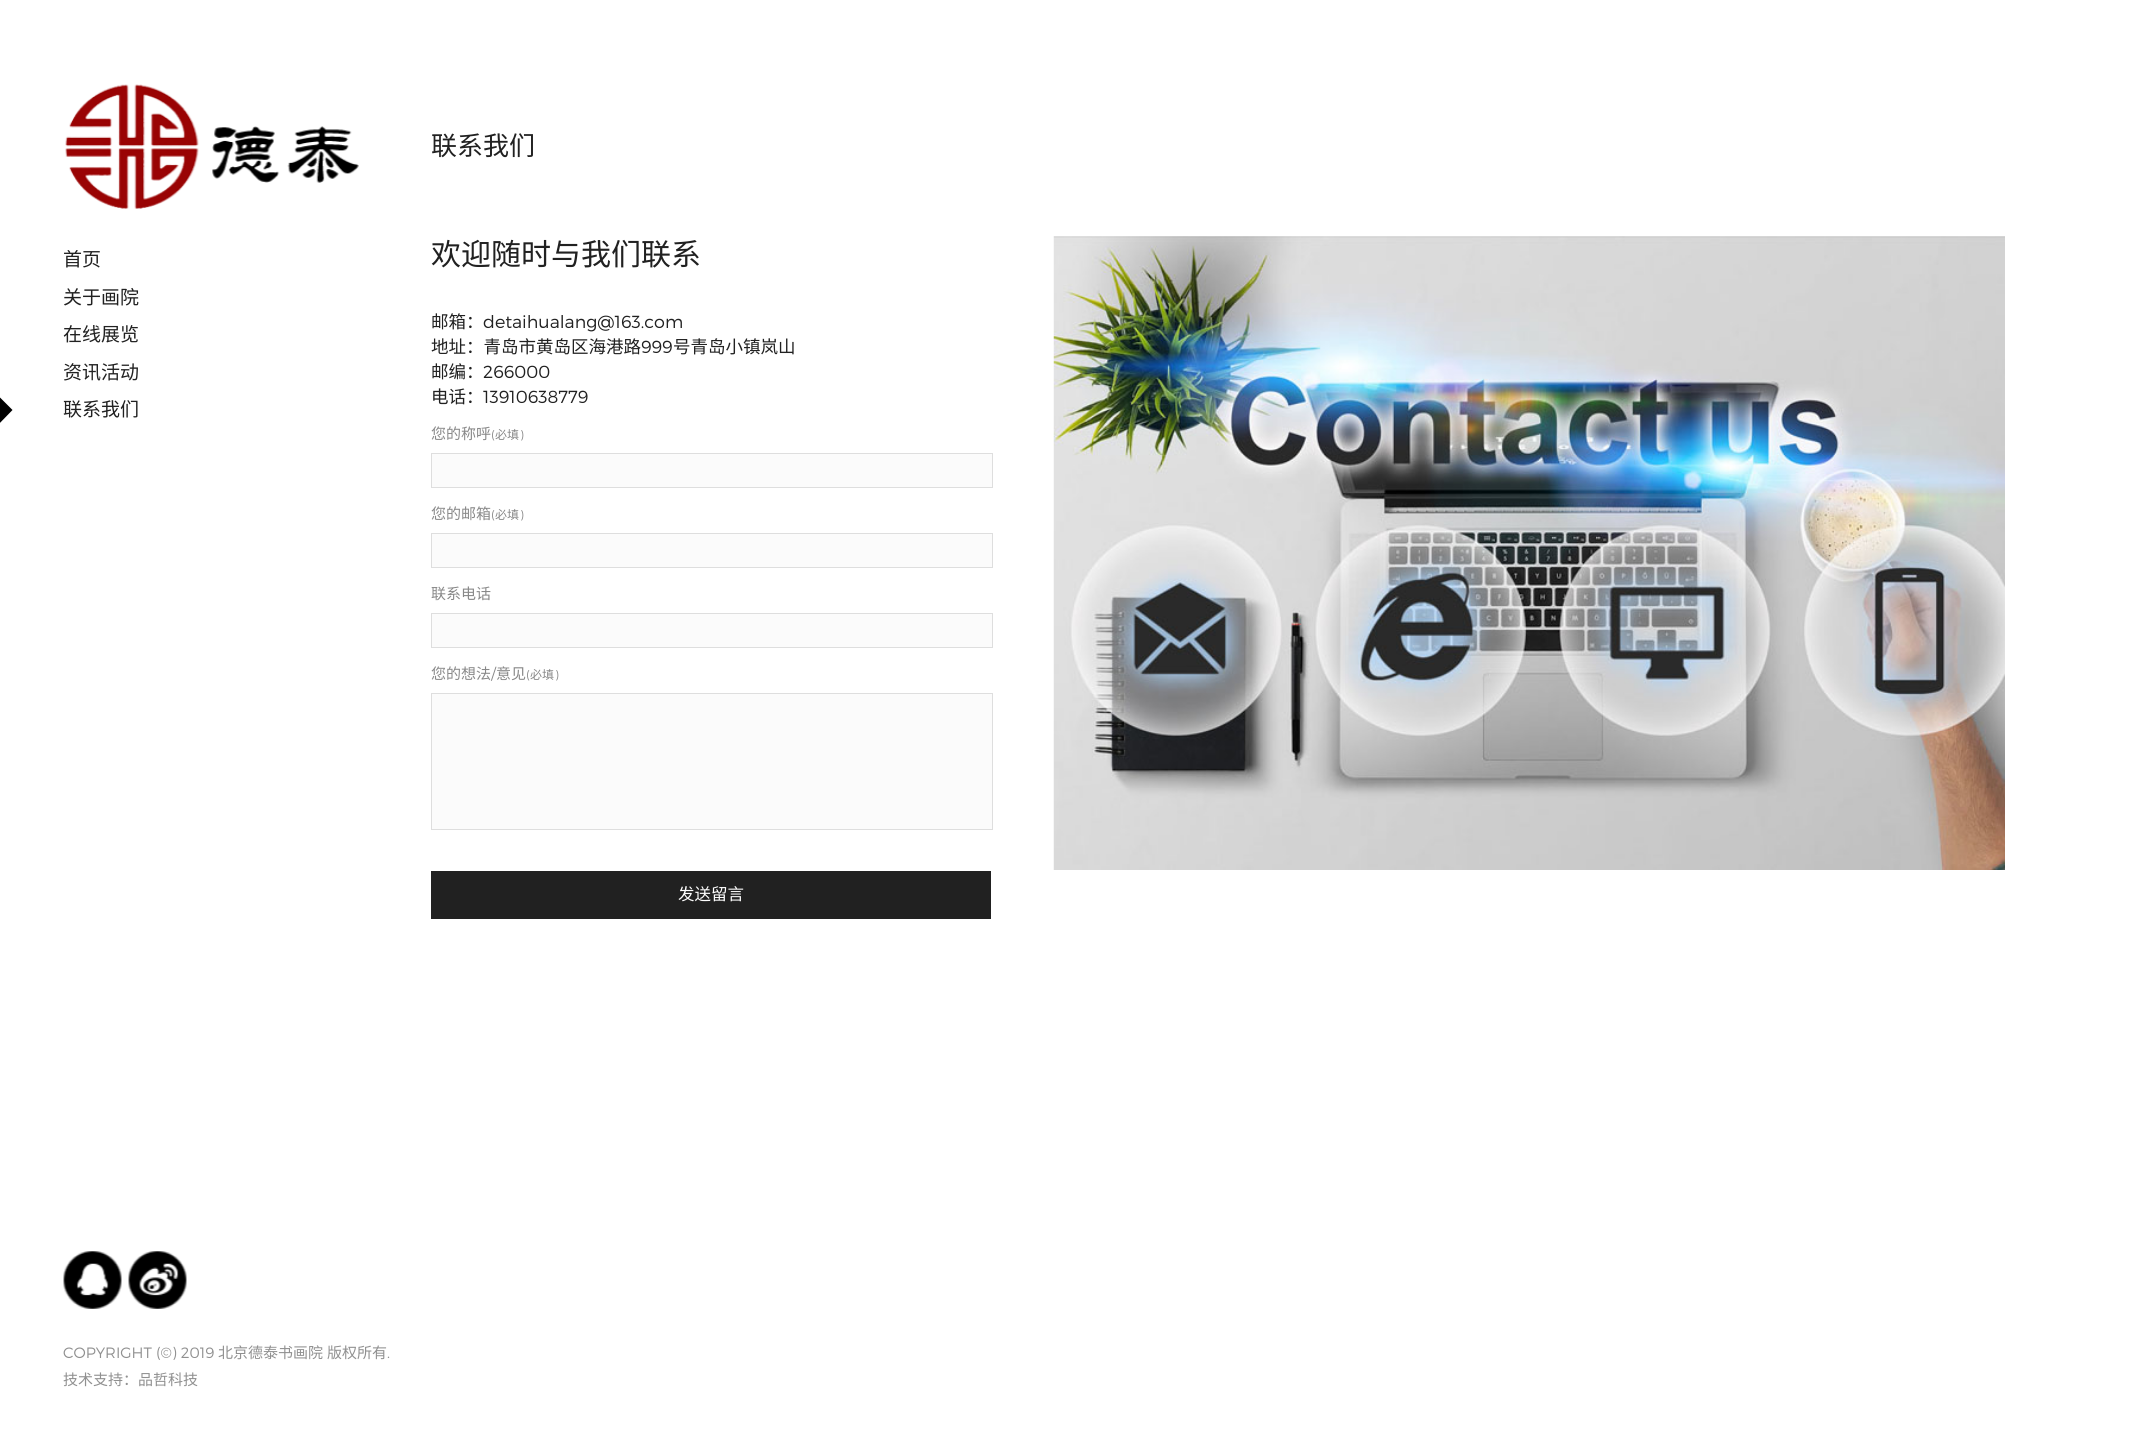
import math
import cairocffi as cairo

surface = cairo.ImageSurface(cairo.FORMAT_RGB24, 2154, 1456)
ctx = cairo.Context(surface)
options = cairo.FontOptions()
options.set_hint_metrics(cairo.HINT_METRICS_OFF)
options.set_hint_style(cairo.HINT_STYLE_NONE)
ctx.set_font_options(options)
ctx.set_miter_limit(4)


def rgb(r, g, b):
    ctx.set_source_rgb(r / 255, g / 255, b / 255)


def face(family, size, italic, bold):
    ctx.select_font_face(family, cairo.FONT_SLANT_ITALIC if italic else cairo.FONT_SLANT_NORMAL, cairo.FONT_WEIGHT_BOLD if bold else cairo.FONT_WEIGHT_NORMAL)
    ctx.set_font_size(size)


def label(x, y, s):
    ctx.move_to(x, y)
    ctx.show_text(s)


def rect(x, y, w, h):
    ctx.rectangle(x, y, w, h)
    ctx.fill()


def image(path, x, y, w, h):
    ctx.save()
    ctx.set_source_surface(cairo.ImageSurface.create_from_png(path), x, y)
    ctx.rectangle(x, y, w, h)
    ctx.fill()
    ctx.restore()


rgb(255, 255, 255)
ctx.paint()
image('image0.png', 65, 84, 294, 125)
face('Noto Sans CJK SC', 19, 0, 0)
rgb(33, 33, 33)
label(63, 266, '首页')
label(63, 304, '关于画院')
label(63, 341, '在线展览')
label(63, 379, '资讯活动')
rgb(0, 0, 0)
ctx.new_path()
ctx.move_to(-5, 392.5)
ctx.line_to(12.5, 410)
ctx.line_to(-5, 428)
ctx.line_to(-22.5, 410)
ctx.close_path()
ctx.fill()
rgb(33, 33, 33)
label(63, 416, '联系我们')
image('image1.png', 63, 1251, 59, 58)
image('image2.png', 128, 1251, 59, 58)
face('Montserrat Light', 15, 0, 0)
rgb(144, 144, 144)
label(63, 1358, 'COPYRIGHT (©) 2019')
face('Noto Sans CJK SC', 15, 0, 0)
label(218, 1358, '北京德泰书画院')
label(327, 1358, '版权所有')
face('Montserrat Light', 15, 0, 0)
label(387, 1358, '.')
face('Noto Sans CJK SC', 15, 0, 0)
label(63, 1385, '技术支持：品哲科技')
face('Noto Sans CJK SC', 26, 0, 0)
rgb(33, 33, 33)
label(431, 155, '联系我们')
face('Noto Sans CJK SC', 30, 0, 0)
label(431, 265, '欢迎随时与我们联系')
face('Noto Sans CJK SC', 17.5, 0, 0)
label(431, 328, '邮箱：')
face('Montserrat Light', 17.5, 0, 0)
label(483, 328, 'detaihualang@163.com')
face('Noto Sans CJK SC', 17.5, 0, 0)
label(431, 353, '地址：青岛市黄岛区海港路')
face('Montserrat Light', 17.5, 0, 0)
label(641, 353, '999')
face('Noto Sans CJK SC', 17.5, 0, 0)
label(673, 353, '号青岛小镇岚山')
label(431, 378, '邮编：')
face('Montserrat Light', 17.5, 0, 0)
label(483, 378, '266000')
face('Noto Sans CJK SC', 17.5, 0, 0)
label(431, 403, '电话：')
face('Montserrat Light', 17.5, 0, 0)
label(483, 403, '13910638779')
face('Noto Sans CJK SC', 15, 0, 0)
rgb(136, 136, 136)
label(431, 439, '您的称呼')
face('Montserrat Light', 12, 0, 0)
label(491, 439, '(')
face('Noto Sans CJK SC', 12, 0, 0)
label(495, 439, '必填')
face('Montserrat Light', 12, 0, 0)
label(520, 439, ')')
rgb(251, 251, 251)
ctx.rectangle(431.5, 453.5, 561, 34)
ctx.fill_preserve()
rgb(222, 222, 222)
ctx.set_line_width(1)
ctx.stroke()
face('Noto Sans CJK SC', 15, 0, 0)
rgb(136, 136, 136)
label(431, 519, '您的邮箱')
face('Montserrat Light', 12, 0, 0)
label(491, 519, '(')
face('Noto Sans CJK SC', 12, 0, 0)
label(495, 519, '必填')
face('Montserrat Light', 12, 0, 0)
label(520, 519, ')')
rgb(251, 251, 251)
ctx.rectangle(431.5, 533.5, 561, 34)
ctx.fill_preserve()
rgb(222, 222, 222)
ctx.stroke()
face('Noto Sans CJK SC', 15, 0, 0)
rgb(136, 136, 136)
label(431, 599, '联系电话')
rgb(251, 251, 251)
ctx.rectangle(431.5, 613.5, 561, 34)
ctx.fill_preserve()
rgb(222, 222, 222)
ctx.stroke()
rgb(136, 136, 136)
label(431, 679, '您的想法')
face('Montserrat Light', 15, 0, 0)
label(491, 679, '/')
face('Noto Sans CJK SC', 15, 0, 0)
label(496, 679, '意见')
face('Montserrat Light', 12, 0, 0)
label(526, 679, '(')
face('Noto Sans CJK SC', 12, 0, 0)
label(530, 679, '必填')
face('Montserrat Light', 12, 0, 0)
label(555, 679, ')')
rgb(251, 251, 251)
ctx.rectangle(431.5, 693.5, 561, 136)
ctx.fill_preserve()
rgb(222, 222, 222)
ctx.stroke()
rgb(33, 33, 33)
rect(431, 871, 560, 48)
face('Noto Sans CJK SC', 16.5, 0, 0)
rgb(255, 255, 255)
label(678, 900, '发送留言')
image('image3.png', 1053, 236, 952, 634)
surface.write_to_png('render.png')
